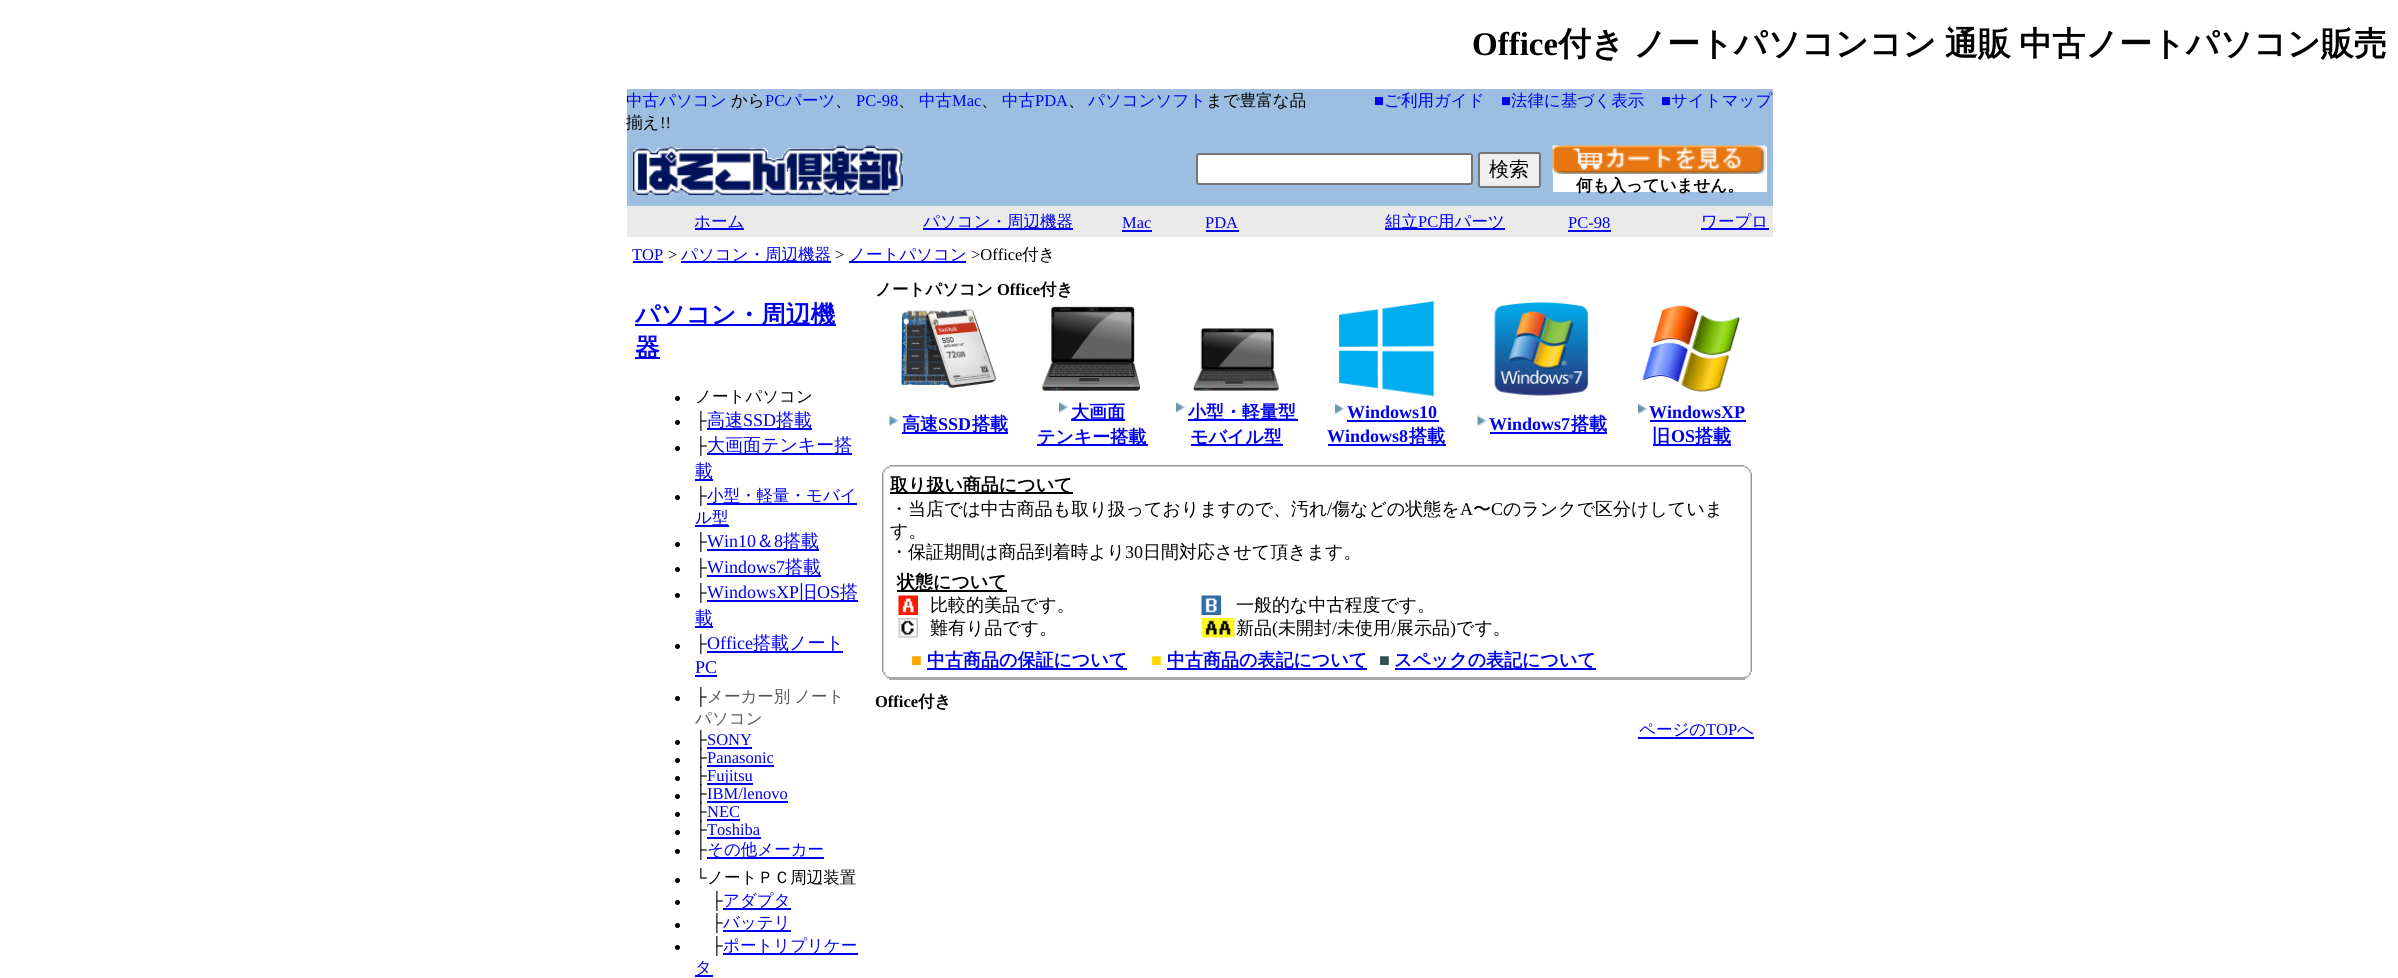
import math
import cairocffi as cairo

surface = cairo.ImageSurface(cairo.FORMAT_RGB24, 2398, 978)
ctx = cairo.Context(surface)
options = cairo.FontOptions()
options.set_hint_metrics(cairo.HINT_METRICS_OFF)
options.set_hint_style(cairo.HINT_STYLE_NONE)
ctx.set_font_options(options)
ctx.set_miter_limit(4)


def rgb(r, g, b):
    ctx.set_source_rgb(r / 255, g / 255, b / 255)


def face(family, size, italic, bold):
    ctx.select_font_face(family, cairo.FONT_SLANT_ITALIC if italic else cairo.FONT_SLANT_NORMAL, cairo.FONT_WEIGHT_BOLD if bold else cairo.FONT_WEIGHT_NORMAL)
    ctx.set_font_size(size)


def label(x, y, s):
    ctx.move_to(x, y)
    ctx.show_text(s)


def tracked(x, y, s, letter, word):
    ctx.move_to(x, y)
    for ch in s:
        ctx.show_text(ch)
        ctx.rel_move_to(letter + word * (ch == ' '), 0)


def rect(x, y, w, h):
    ctx.rectangle(x, y, w, h)
    ctx.fill()


def rrect(x, y, w, h, r):
    ctx.new_sub_path()
    for i, (u, v) in enumerate([(x + w - r, y + h - r), (x + r, y + h - r), (x + r, y + r), (x + w - r, y + r)]):
        ctx.arc(u, v, r, i * math.pi / 2, (i + 1) * math.pi / 2)
    ctx.close_path()


def image(path, x, y, w, h):
    ctx.save()
    ctx.set_source_surface(cairo.ImageSurface.create_from_png(path), x, y)
    ctx.rectangle(x, y, w, h)
    ctx.fill()
    ctx.restore()


rgb(255, 255, 255)
ctx.paint()
face('Liberation Serif', 33, 0, 1)
rgb(0, 0, 0)
label(1472, 55, 'Office')
face('WenQuanYi Zen Hei', 33, 0, 1)
tracked(1558, 55, '付き ノートパソコンコン 通販 中古ノートパソコン販売', 0, -1.5)
rgb(156, 190, 224)
rect(627, 89, 1146, 117)
face('WenQuanYi Zen Hei Medium', 16.5, 0, 0)
rgb(0, 0, 238)
label(626, 106, '中古パソコン')
rgb(0, 0, 0)
label(731, 106, 'から')
face('Liberation Serif', 16.5, 0, 0)
rgb(0, 0, 238)
label(765, 106, 'PC')
face('WenQuanYi Zen Hei Medium', 16.5, 0, 0)
label(785, 106, 'パーツ')
rgb(0, 0, 0)
label(835, 106, '、')
face('Liberation Serif', 16.5, 0, 0)
rgb(0, 0, 238)
label(856, 106, 'PC-98')
face('WenQuanYi Zen Hei Medium', 16.5, 0, 0)
rgb(0, 0, 0)
label(898, 106, '、')
rgb(0, 0, 238)
label(919, 106, '中古')
face('Liberation Serif', 16.5, 0, 0)
label(952, 106, 'Mac')
face('WenQuanYi Zen Hei Medium', 16.5, 0, 0)
rgb(0, 0, 0)
label(981, 106, '、')
rgb(0, 0, 238)
label(1002, 106, '中古')
face('Liberation Serif', 16.5, 0, 0)
label(1035, 106, 'PDA')
face('WenQuanYi Zen Hei Medium', 16.5, 0, 0)
rgb(0, 0, 0)
label(1068, 106, '、')
rgb(0, 0, 238)
label(1088, 106, 'パソコンソフト')
rgb(0, 0, 0)
label(1206, 106, 'まで豊富な品')
label(626, 128, '揃え')
face('Liberation Serif', 16.5, 0, 0)
label(660, 128, '!!')
rgb(0, 0, 238)
label(1374, 106, '■')
face('WenQuanYi Zen Hei Medium', 16.5, 0, 0)
label(1384, 106, 'ご利用ガイド')
face('Liberation Serif', 16.5, 0, 0)
label(1501, 106, '■')
face('WenQuanYi Zen Hei Medium', 16.5, 0, 0)
label(1511, 106, '法律に基づく表示')
face('Liberation Serif', 16.5, 0, 0)
label(1661, 106, '■')
face('WenQuanYi Zen Hei Medium', 16.5, 0, 0)
label(1671, 106, 'サイトマップ')
image('image0.png', 633, 145, 270, 50)
rgb(255, 255, 255)
rrect(1197, 154, 275, 30, 2)
ctx.fill_preserve()
rgb(118, 118, 118)
ctx.stroke()
rgb(239, 239, 239)
rrect(1479, 153, 61, 34, 2)
ctx.fill_preserve()
rgb(118, 118, 118)
ctx.stroke()
face('WenQuanYi Zen Hei Medium', 20, 0, 0)
rgb(0, 0, 0)
label(1489, 176, '検索')
rgb(255, 255, 255)
rect(1553, 147, 214, 45)
image('image1.png', 1552, 145, 214, 29)
face('WenQuanYi Zen Hei', 16.5, 0, 1)
rgb(0, 0, 0)
label(1576, 191, '何も入っていません。')
rgb(234, 234, 234)
rect(627, 206, 1146, 31)
rgb(0, 0, 238)
rect(695, 228, 49, 2)
face('WenQuanYi Zen Hei Medium', 16.5, 0, 0)
label(694, 227, 'ホーム')
rect(923, 228, 150, 2)
label(923, 227, 'パソコン・周辺機器')
face('Liberation Serif', 16.5, 0, 0)
label(1122, 228, 'Mac')
rect(1122, 230, 30, 2)
label(1205, 228, 'PDA')
rect(1206, 230, 33, 2)
rect(1385, 228, 120, 2)
face('WenQuanYi Zen Hei Medium', 16.5, 0, 0)
label(1385, 227, '組立')
face('Liberation Serif', 16.5, 0, 0)
label(1418, 227, 'PC')
face('WenQuanYi Zen Hei Medium', 16.5, 0, 0)
label(1438, 227, '用パーツ')
face('Liberation Serif', 16.5, 0, 0)
label(1568, 228, 'PC-98')
rect(1568, 230, 43, 2)
rect(1701, 228, 68, 2)
face('WenQuanYi Zen Hei Medium', 16.5, 0, 0)
label(1701, 227, 'ワープロ')
face('Liberation Serif', 16.5, 0, 0)
label(632, 260, 'TOP')
rect(633, 261, 30, 2)
rgb(0, 0, 0)
label(668, 260, '>')
rgb(0, 0, 238)
rect(681, 261, 150, 2)
face('WenQuanYi Zen Hei Medium', 16.5, 0, 0)
label(681, 260, 'パソコン・周辺機器')
face('Liberation Serif', 16.5, 0, 0)
rgb(0, 0, 0)
label(835, 260, '>')
rgb(0, 0, 238)
rect(849, 261, 117, 2)
face('WenQuanYi Zen Hei Medium', 16.5, 0, 0)
label(849, 260, 'ノートパソコン')
face('Liberation Serif', 16.5, 0, 0)
rgb(0, 0, 0)
label(971, 260, '>Office')
face('WenQuanYi Zen Hei Medium', 16.5, 0, 0)
label(1022, 260, '付き')
rgb(0, 0, 238)
rect(635, 324, 201, 2)
face('WenQuanYi Zen Hei', 24.75, 0, 1)
label(635, 323, 'パソコン・周辺機')
rect(635, 357, 25, 2)
label(635, 356, '器')
rgb(0, 0, 0)
ctx.new_path()
ctx.arc(677.5, 398.5, 2.5, 0, 2 * math.pi)
ctx.fill()
face('WenQuanYi Zen Hei Medium', 16.5, 0, 0)
label(695, 402, 'ノートパソコン')
ctx.new_path()
ctx.arc(677.5, 422.5, 2.5, 0, 2 * math.pi)
ctx.fill()
face('Liberation Serif', 16.5, 0, 0)
label(695, 426, '├')
rgb(0, 0, 238)
rect(707, 428, 105, 2)
face('WenQuanYi Zen Hei Medium', 18, 0, 0)
label(707, 426, '高速')
face('Liberation Serif', 18, 0, 0)
label(743, 426, 'SSD')
face('WenQuanYi Zen Hei Medium', 18, 0, 0)
label(776, 426, '搭載')
rgb(0, 0, 0)
ctx.new_path()
ctx.arc(677.5, 448.5, 2.5, 0, 2 * math.pi)
ctx.fill()
face('Liberation Serif', 16.5, 0, 0)
label(695, 451, '├')
rgb(0, 0, 238)
rect(707, 453, 145, 2)
face('WenQuanYi Zen Hei Medium', 18, 0, 0)
label(707, 451, '大画面テンキー搭')
rect(695, 479, 18, 2)
label(695, 477, '載')
rgb(0, 0, 0)
ctx.new_path()
ctx.arc(677.5, 497.5, 2.5, 0, 2 * math.pi)
ctx.fill()
face('Liberation Serif', 16.5, 0, 0)
label(695, 501, '├')
rgb(0, 0, 238)
rect(707, 503, 150, 2)
face('WenQuanYi Zen Hei Medium', 16.5, 0, 0)
label(707, 501, '小型・軽量・モバイ')
label(695, 523, 'ル型')
rect(695, 525, 34, 2)
rgb(0, 0, 0)
ctx.new_path()
ctx.arc(677.5, 544.5, 2.5, 0, 2 * math.pi)
ctx.fill()
face('Liberation Serif', 16.5, 0, 0)
label(695, 547, '├')
face('Liberation Serif', 18, 0, 0)
rgb(0, 0, 238)
label(707, 547, 'Win10')
rect(707, 549, 112, 2)
face('WenQuanYi Zen Hei Medium', 18, 0, 0)
label(756, 547, '＆')
face('Liberation Serif', 18, 0, 0)
label(774, 547, '8')
face('WenQuanYi Zen Hei Medium', 18, 0, 0)
label(783, 547, '搭載')
rgb(0, 0, 0)
ctx.new_path()
ctx.arc(677.5, 569.5, 2.5, 0, 2 * math.pi)
ctx.fill()
face('Liberation Serif', 16.5, 0, 0)
label(695, 573, '├')
face('Liberation Serif', 18, 0, 0)
rgb(0, 0, 238)
label(707, 573, 'Windows7')
rect(707, 575, 114, 2)
face('WenQuanYi Zen Hei Medium', 18, 0, 0)
label(785, 573, '搭載')
rgb(0, 0, 0)
ctx.new_path()
ctx.arc(677.5, 595.5, 2.5, 0, 2 * math.pi)
ctx.fill()
face('Liberation Serif', 16.5, 0, 0)
label(695, 598, '├')
face('Liberation Serif', 18, 0, 0)
rgb(0, 0, 238)
label(707, 598, 'WindowsXP')
rect(707, 600, 151, 2)
face('WenQuanYi Zen Hei Medium', 18, 0, 0)
label(799, 598, '旧')
face('Liberation Serif', 18, 0, 0)
label(817, 598, 'OS')
face('WenQuanYi Zen Hei Medium', 18, 0, 0)
label(840, 598, '搭')
rect(695, 626, 18, 2)
label(695, 624, '載')
rgb(0, 0, 0)
ctx.new_path()
ctx.arc(677.5, 646.5, 2.5, 0, 2 * math.pi)
ctx.fill()
face('Liberation Serif', 16.5, 0, 0)
label(695, 649, '├')
face('Liberation Serif', 18, 0, 0)
rgb(0, 0, 238)
label(707, 649, 'Office')
rect(707, 651, 136, 2)
face('WenQuanYi Zen Hei Medium', 18, 0, 0)
label(753, 649, '搭載ノート')
face('Liberation Serif', 18, 0, 0)
label(695, 673, 'PC')
rect(695, 675, 22, 2)
rgb(0, 0, 0)
ctx.new_path()
ctx.arc(677.5, 698.5, 2.5, 0, 2 * math.pi)
ctx.fill()
face('Liberation Serif', 16.5, 0, 0)
label(695, 702, '├')
face('WenQuanYi Zen Hei Medium', 16.5, 0, 0)
rgb(85, 85, 85)
tracked(707, 702, 'メーカー別 ノート', 0, -1)
label(695, 724, 'パソコン')
rgb(0, 0, 0)
ctx.new_path()
ctx.arc(677.5, 742.5, 2.5, 0, 2 * math.pi)
ctx.fill()
face('Liberation Serif', 16.5, 0, 0)
label(695, 745, '├')
rgb(0, 0, 238)
label(707, 745, 'SONY')
rect(707, 747, 45, 2)
rgb(0, 0, 0)
ctx.new_path()
ctx.arc(677.5, 760.5, 2.5, 0, 2 * math.pi)
ctx.fill()
label(695, 763, '├')
rgb(0, 0, 238)
label(707, 763, 'Panasonic')
rect(707, 765, 67, 2)
rgb(0, 0, 0)
ctx.new_path()
ctx.arc(677.5, 778.5, 2.5, 0, 2 * math.pi)
ctx.fill()
label(695, 781, '├')
rgb(0, 0, 238)
rect(707, 783, 46, 2)
label(707, 781, 'Fujitsu')
rgb(0, 0, 0)
ctx.new_path()
ctx.arc(677.5, 796.5, 2.5, 0, 2 * math.pi)
ctx.fill()
label(695, 799, '├')
rgb(0, 0, 238)
label(707, 799, 'IBM/lenovo')
rect(707, 801, 81, 2)
rgb(0, 0, 0)
ctx.new_path()
ctx.arc(677.5, 814.5, 2.5, 0, 2 * math.pi)
ctx.fill()
label(695, 817, '├')
rgb(0, 0, 238)
label(707, 817, 'NEC')
rect(707, 819, 33, 2)
rgb(0, 0, 0)
ctx.new_path()
ctx.arc(677.5, 832.5, 2.5, 0, 2 * math.pi)
ctx.fill()
label(695, 835, '├')
rgb(0, 0, 238)
label(707, 835, 'Toshiba')
rect(707, 837, 54, 2)
rgb(0, 0, 0)
ctx.new_path()
ctx.arc(677.5, 851.5, 2.5, 0, 2 * math.pi)
ctx.fill()
label(695, 855, '├')
rgb(0, 0, 238)
rect(707, 857, 117, 2)
face('WenQuanYi Zen Hei Medium', 16.5, 0, 0)
label(707, 855, 'その他メーカー')
rgb(0, 0, 0)
ctx.new_path()
ctx.arc(677.5, 880.5, 2.5, 0, 2 * math.pi)
ctx.fill()
face('Liberation Serif', 16.5, 0, 0)
label(695, 883, '└')
face('WenQuanYi Zen Hei Medium', 16.5, 0, 0)
label(707, 883, 'ノートＰＣ周辺装置')
ctx.new_path()
ctx.arc(677.5, 902.5, 2.5, 0, 2 * math.pi)
ctx.fill()
face('Liberation Serif', 16.5, 0, 0)
label(711, 906, '├')
rgb(0, 0, 238)
rect(723, 908, 68, 2)
face('WenQuanYi Zen Hei Medium', 16.5, 0, 0)
label(723, 906, 'アダプタ')
rgb(0, 0, 0)
ctx.new_path()
ctx.arc(677.5, 925.5, 2.5, 0, 2 * math.pi)
ctx.fill()
face('Liberation Serif', 16.5, 0, 0)
label(711, 928, '├')
rgb(0, 0, 238)
rect(723, 930, 68, 2)
face('WenQuanYi Zen Hei Medium', 16.5, 0, 0)
label(723, 928, 'バッテリ')
rgb(0, 0, 0)
ctx.new_path()
ctx.arc(677.5, 947.5, 2.5, 0, 2 * math.pi)
ctx.fill()
face('Liberation Serif', 16.5, 0, 0)
label(711, 951, '├')
rgb(0, 0, 238)
rect(723, 953, 135, 2)
face('WenQuanYi Zen Hei Medium', 16.5, 0, 0)
label(723, 951, 'ポートリプリケー')
rect(695, 975, 18, 2)
label(695, 973, 'タ')
face('WenQuanYi Zen Hei', 16.5, 0, 1)
rgb(0, 0, 0)
label(875, 295, 'ノートパソコン')
face('Liberation Serif', 16.5, 0, 1)
label(997, 295, 'Office')
face('WenQuanYi Zen Hei', 16.5, 0, 1)
label(1040, 295, '付き')
image('image2.png', 901, 308, 96, 80)
image('image3.png', 1042, 306, 98, 85)
image('image4.png', 1193, 328, 86, 63)
image('image5.png', 1339, 301, 96, 96)
image('image6.png', 1494, 302, 95, 95)
image('image7.png', 1642, 305, 98, 87)
image('image8.png', 889, 415, 10, 12)
rgb(0, 0, 238)
rect(902, 432, 106, 2)
face('WenQuanYi Zen Hei', 18, 0, 1)
label(902, 430, '高速')
face('Liberation Serif', 18, 0, 1)
label(938, 430, 'SSD')
face('WenQuanYi Zen Hei', 18, 0, 1)
label(972, 430, '搭載')
image('image9.png', 1059, 401, 10, 12)
rect(1071, 419, 54, 2)
label(1071, 418, '大画面')
rect(1037, 444, 111, 2)
label(1037, 443, 'テンキー搭載')
image('image9.png', 1176, 401, 10, 12)
rect(1188, 419, 110, 2)
label(1188, 418, '小型・軽量型')
rect(1191, 444, 92, 2)
label(1190, 443, 'モバイル型')
image('image10.png', 1335, 403, 10, 12)
face('Liberation Serif', 18, 0, 1)
label(1347, 418, 'Windows10')
rect(1347, 420, 92, 2)
label(1327, 442, 'Windows8')
rect(1328, 444, 118, 2)
face('WenQuanYi Zen Hei', 18, 0, 1)
label(1409, 442, '搭載')
image('image11.png', 1477, 415, 10, 12)
face('Liberation Serif', 18, 0, 1)
label(1489, 430, 'Windows7')
rect(1490, 432, 117, 2)
face('WenQuanYi Zen Hei', 18, 0, 1)
label(1571, 430, '搭載')
image('image12.png', 1638, 403, 10, 12)
face('Liberation Serif', 18, 0, 1)
label(1649, 418, 'WindowsXP')
rect(1650, 420, 96, 2)
rect(1653, 444, 78, 2)
face('WenQuanYi Zen Hei', 18, 0, 1)
label(1652, 442, '旧')
face('Liberation Serif', 18, 0, 1)
label(1671, 442, 'OS')
face('WenQuanYi Zen Hei', 18, 0, 1)
label(1695, 442, '搭載')
image('image13.png', 883, 466, 7, 7)
image('image14.png', 889, 465, 856, 2)
image('image15.png', 1744, 466, 7, 7)
image('image16.png', 882, 472, 2, 200)
rgb(0, 0, 0)
rect(890, 492, 183, 2)
label(890, 491, '取り扱い商品について')
face('WenQuanYi Zen Hei Medium', 18, 0, 0)
label(890, 515, '・当店では中古商品も取り扱っておりますので、汚れ')
face('Liberation Serif', 18, 0, 0)
label(1327, 515, '/')
face('WenQuanYi Zen Hei Medium', 18, 0, 0)
label(1332, 515, '傷などの状態を')
face('Liberation Serif', 18, 0, 0)
label(1460, 515, 'A')
face('WenQuanYi Zen Hei Medium', 18, 0, 0)
label(1473, 515, '〜')
face('Liberation Serif', 18, 0, 0)
label(1491, 515, 'C')
face('WenQuanYi Zen Hei Medium', 18, 0, 0)
label(1503, 515, 'のランクで区分けしていま')
label(890, 537, 'す。')
label(890, 558, '・保証期間は商品到着時より')
face('Liberation Serif', 18, 0, 0)
label(1125, 558, '30')
face('WenQuanYi Zen Hei Medium', 18, 0, 0)
label(1143, 558, '日間対応させて頂きます。')
rect(897, 590, 110, 2)
face('WenQuanYi Zen Hei', 18, 0, 1)
label(897, 588, '状態について')
image('image17.png', 898, 595, 20, 20)
face('WenQuanYi Zen Hei Medium', 18, 0, 0)
label(930, 611, '比較的美品です。')
image('image18.png', 1201, 595, 20, 20)
label(1236, 611, '一般的な中古程度です。')
image('image19.png', 898, 618, 20, 20)
label(930, 634, '難有り品です。')
image('image20.png', 1201, 618, 34, 20)
label(1236, 634, '新品')
face('Liberation Serif', 18, 0, 0)
label(1272, 634, '(')
face('WenQuanYi Zen Hei Medium', 18, 0, 0)
label(1278, 634, '未開封')
face('Liberation Serif', 18, 0, 0)
label(1332, 634, '/')
face('WenQuanYi Zen Hei Medium', 18, 0, 0)
label(1337, 634, '未使用')
face('Liberation Serif', 18, 0, 0)
label(1391, 634, '/')
face('WenQuanYi Zen Hei Medium', 18, 0, 0)
label(1396, 634, '展示品')
face('Liberation Serif', 18, 0, 0)
label(1450, 634, ')')
face('WenQuanYi Zen Hei Medium', 18, 0, 0)
label(1456, 634, 'です。')
face('Liberation Serif', 18, 0, 0)
rgb(255, 165, 0)
label(911, 666, '■')
rgb(0, 0, 238)
rect(927, 668, 200, 2)
face('WenQuanYi Zen Hei', 18, 0, 1)
label(927, 666, '中古商品の保証について')
face('Liberation Serif', 18, 0, 0)
rgb(255, 215, 0)
label(1151, 666, '■')
rgb(0, 0, 238)
rect(1167, 668, 200, 2)
face('WenQuanYi Zen Hei', 18, 0, 1)
label(1167, 666, '中古商品の表記について')
face('Liberation Serif', 18, 0, 0)
rgb(47, 79, 79)
label(1379, 666, '■')
rgb(0, 0, 238)
rect(1395, 668, 201, 2)
face('WenQuanYi Zen Hei', 18, 0, 1)
label(1394, 666, 'スペックの表記について')
image('image21.png', 1750, 472, 2, 200)
image('image22.png', 883, 672, 7, 7)
ctx.set_source_rgba(0.6, 0.6, 0.6, 0.84)
rect(889, 677, 856, 3)
image('image23.png', 1744, 672, 7, 7)
face('Liberation Serif', 16.5, 0, 1)
rgb(0, 0, 0)
label(875, 707, 'Office')
face('WenQuanYi Zen Hei', 16.5, 0, 1)
label(918, 707, '付き')
face('WenQuanYi Zen Hei Medium', 16.5, 0, 0)
rgb(0, 0, 238)
label(1639, 735, 'ページの')
face('Liberation Serif', 16.5, 0, 0)
label(1706, 735, 'TOP')
face('WenQuanYi Zen Hei Medium', 16.5, 0, 0)
label(1737, 735, 'へ')
rect(1638, 737, 116, 2)
surface.write_to_png('render.png')
